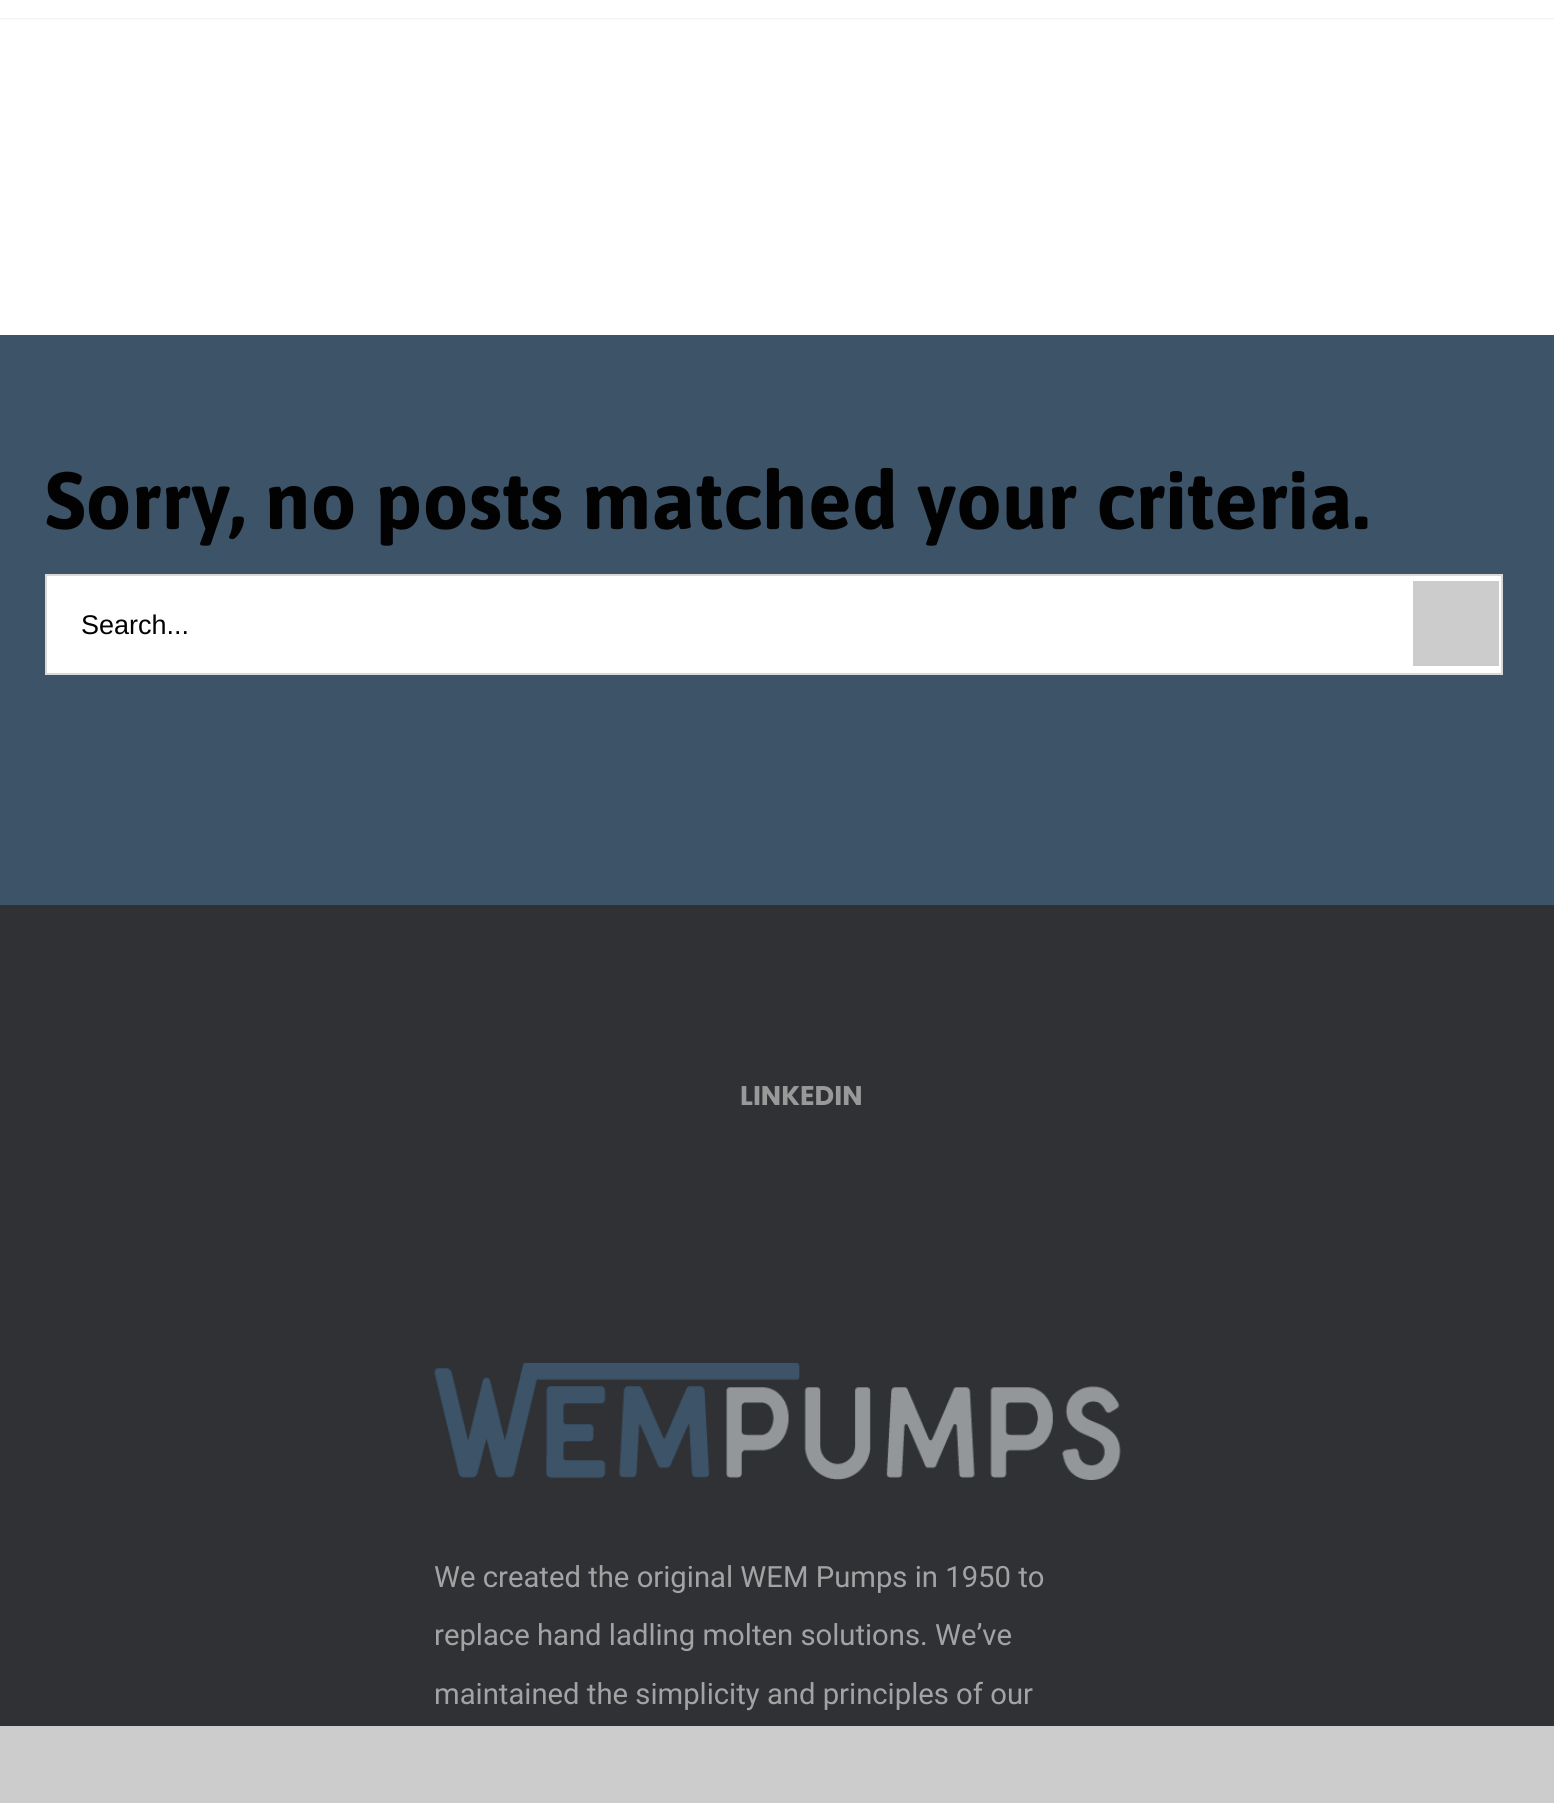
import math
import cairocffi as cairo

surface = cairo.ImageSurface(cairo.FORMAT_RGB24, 1554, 1803)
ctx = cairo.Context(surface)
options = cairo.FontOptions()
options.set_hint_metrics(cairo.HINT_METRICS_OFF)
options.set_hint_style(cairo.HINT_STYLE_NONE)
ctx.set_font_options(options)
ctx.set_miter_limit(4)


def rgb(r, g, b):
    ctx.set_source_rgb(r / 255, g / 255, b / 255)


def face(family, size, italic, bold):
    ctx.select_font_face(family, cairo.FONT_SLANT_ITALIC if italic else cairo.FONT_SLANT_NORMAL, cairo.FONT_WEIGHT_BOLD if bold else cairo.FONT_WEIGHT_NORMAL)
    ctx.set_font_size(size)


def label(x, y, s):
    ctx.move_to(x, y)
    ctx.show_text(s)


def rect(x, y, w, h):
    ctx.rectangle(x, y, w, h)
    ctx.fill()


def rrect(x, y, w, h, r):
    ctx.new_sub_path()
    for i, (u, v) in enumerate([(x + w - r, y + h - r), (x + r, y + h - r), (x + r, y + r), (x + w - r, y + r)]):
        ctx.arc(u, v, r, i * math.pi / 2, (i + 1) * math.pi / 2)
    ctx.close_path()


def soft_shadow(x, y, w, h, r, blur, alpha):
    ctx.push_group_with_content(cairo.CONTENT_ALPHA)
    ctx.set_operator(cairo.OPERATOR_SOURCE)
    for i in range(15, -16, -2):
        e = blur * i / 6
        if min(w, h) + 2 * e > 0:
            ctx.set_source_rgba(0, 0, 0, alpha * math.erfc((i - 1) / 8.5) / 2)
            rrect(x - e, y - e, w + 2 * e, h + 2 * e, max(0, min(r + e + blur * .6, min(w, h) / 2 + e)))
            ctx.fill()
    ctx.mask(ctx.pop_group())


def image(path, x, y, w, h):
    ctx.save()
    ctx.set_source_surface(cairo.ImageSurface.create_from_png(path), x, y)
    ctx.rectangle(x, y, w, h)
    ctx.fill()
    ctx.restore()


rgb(60, 83, 104)
ctx.paint()
rgb(255, 255, 255)
rect(0, 18, 1554, 317)
rgb(0, 0, 0)
soft_shadow(0, -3, 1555, 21, 0, 1, 0.15)
rgb(255, 255, 255)
rect(0, 0, 1554, 18)
face('Asap', 81, 0, 1)
rgb(2, 2, 2)
label(45, 529, 'Sorry, no posts matched your criteria.')
rgb(255, 255, 255)
ctx.rectangle(46, 575, 1456, 99)
ctx.fill_preserve()
rgb(217, 217, 217)
ctx.stroke()
face('Liberation Sans', 27, 0, 0)
rgb(2, 2, 2)
label(81, 634, 'Search...')
rgb(204, 204, 204)
rect(1413, 581, 86, 85)
rgb(47, 49, 53)
rect(0, 905, 1554, 821)
face('Poppins', 27, 0, 1)
rgb(153, 153, 153)
label(740, 1105, 'LINKEDIN')
image('image0.png', 434, 1363, 687, 117)
face('Roboto', 29.25, 0, 0)
rgb(163, 163, 163)
label(434, 1587, 'We created the original WEM Pumps in 1950 to')
label(434, 1645, 'replace hand ladling molten solutions. We’ve')
label(434, 1704, 'maintained the simplicity and principles of our')
rgb(204, 204, 204)
rect(0, 1726, 1554, 77)
surface.write_to_png('render.png')
